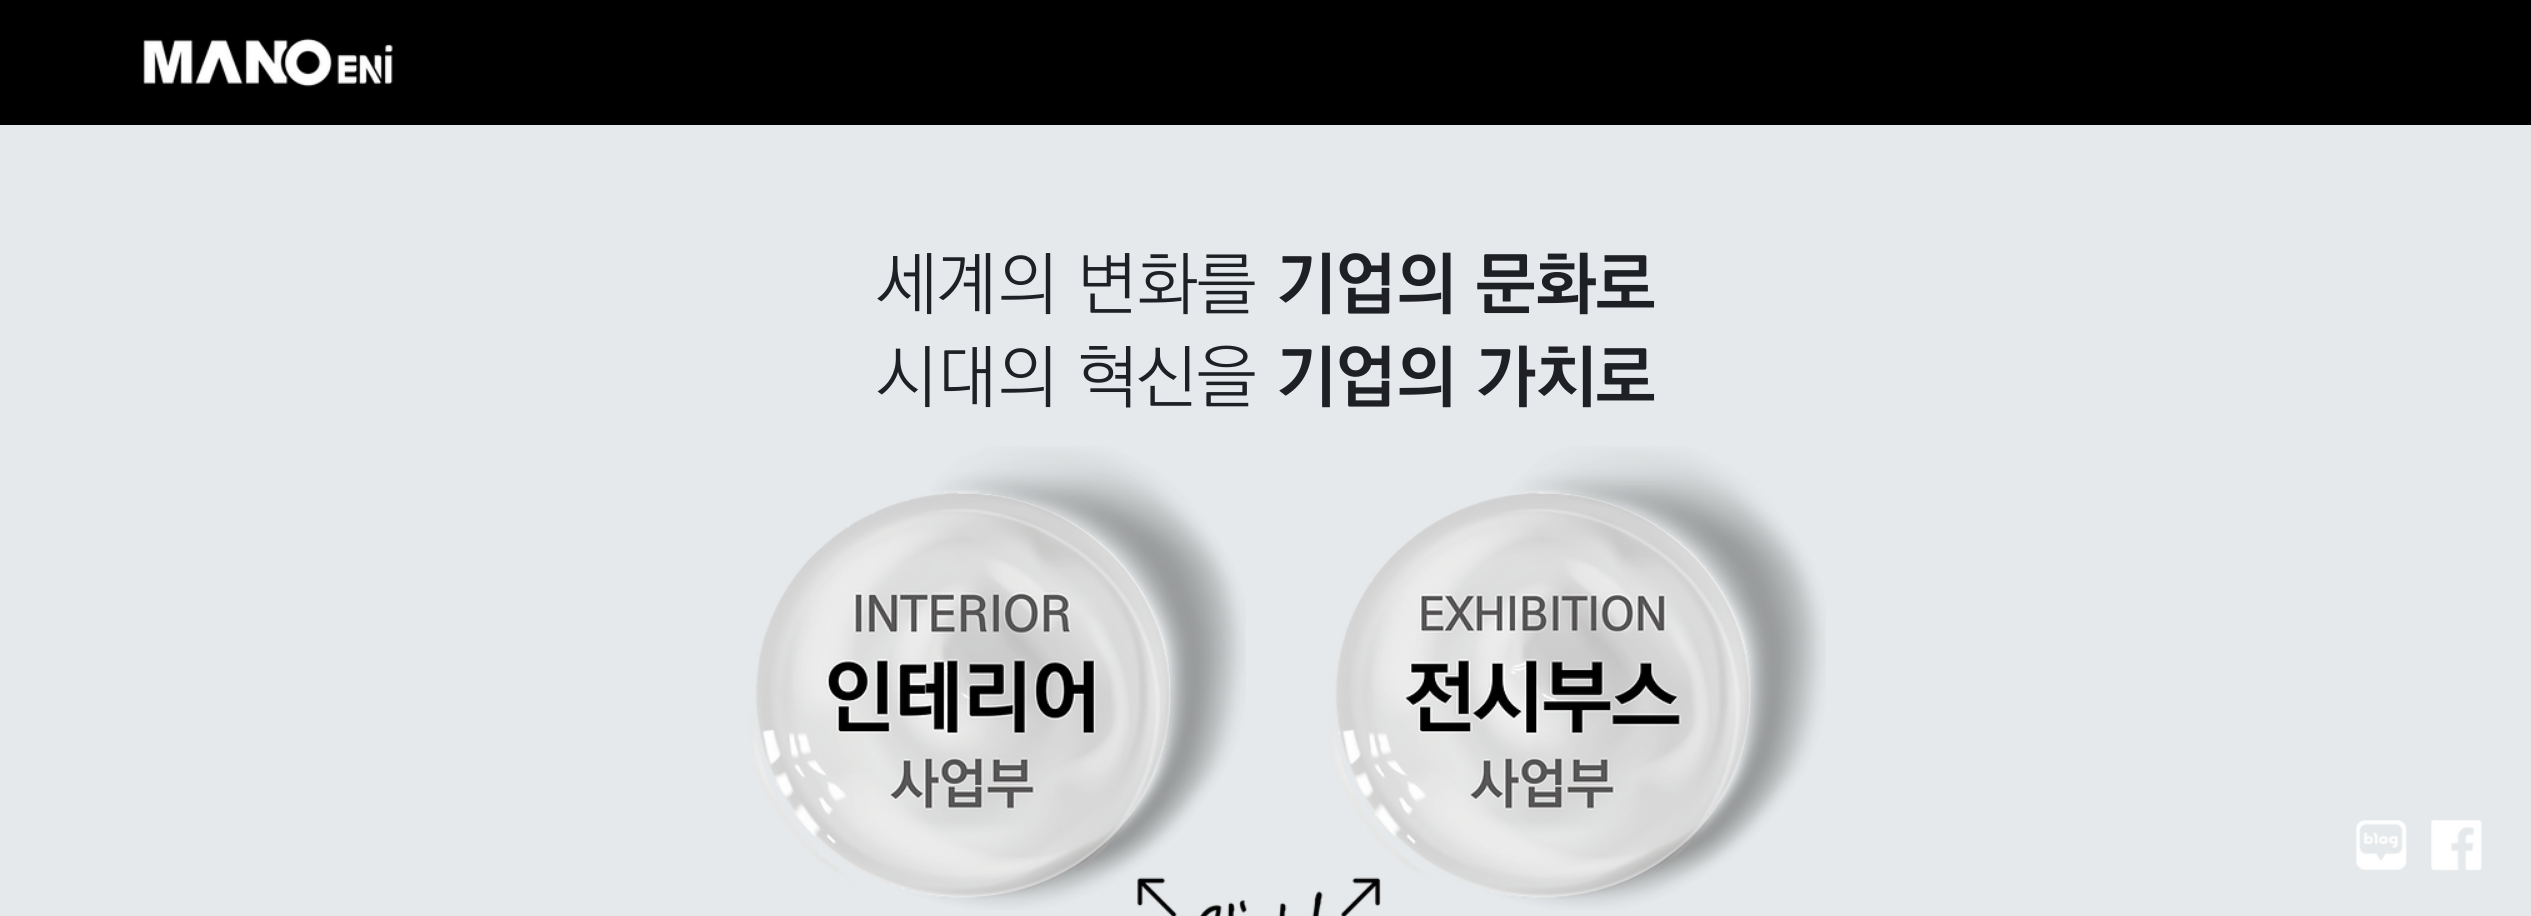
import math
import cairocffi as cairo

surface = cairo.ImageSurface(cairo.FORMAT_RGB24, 2531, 916)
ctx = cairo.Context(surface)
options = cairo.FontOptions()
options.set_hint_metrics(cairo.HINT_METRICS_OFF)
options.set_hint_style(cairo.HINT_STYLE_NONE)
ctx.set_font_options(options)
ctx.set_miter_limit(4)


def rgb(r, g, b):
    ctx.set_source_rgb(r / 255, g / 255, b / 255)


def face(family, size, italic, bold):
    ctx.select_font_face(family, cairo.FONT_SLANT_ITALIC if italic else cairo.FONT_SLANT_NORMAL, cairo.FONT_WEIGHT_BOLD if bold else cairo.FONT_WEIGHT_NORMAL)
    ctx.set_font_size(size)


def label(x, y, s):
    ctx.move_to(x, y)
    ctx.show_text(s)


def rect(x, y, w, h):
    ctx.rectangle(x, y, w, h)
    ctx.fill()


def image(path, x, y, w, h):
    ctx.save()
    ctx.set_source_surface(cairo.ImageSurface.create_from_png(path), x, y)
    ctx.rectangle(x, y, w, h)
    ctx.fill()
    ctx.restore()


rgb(230, 233, 235)
ctx.paint()
rgb(0, 0, 0)
rect(0, 0, 2531, 125)
image('image0.png', 143, 38, 250, 49)
face('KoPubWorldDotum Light', 68.75, 0, 0)
rgb(30, 32, 37)
label(877, 305, '세계의 변화를')
face('KoPubWorldDotum', 68.75, 0, 1)
label(1276, 305, '기업의 문화로')
face('KoPubWorldDotum Light', 68.75, 0, 0)
label(877, 398, '시대의 혁신을')
face('KoPubWorldDotum', 68.75, 0, 1)
label(1276, 398, '기업의 가치로')
image('image1.png', 749, 446, 497, 464)
image('image3.png', 1329, 446, 497, 464)
image('image2.png', 1137, 877, 244, 39)
image('image4.png', 2356, 820, 51, 50)
image('image5.png', 2431, 820, 51, 51)
surface.write_to_png('render.png')
